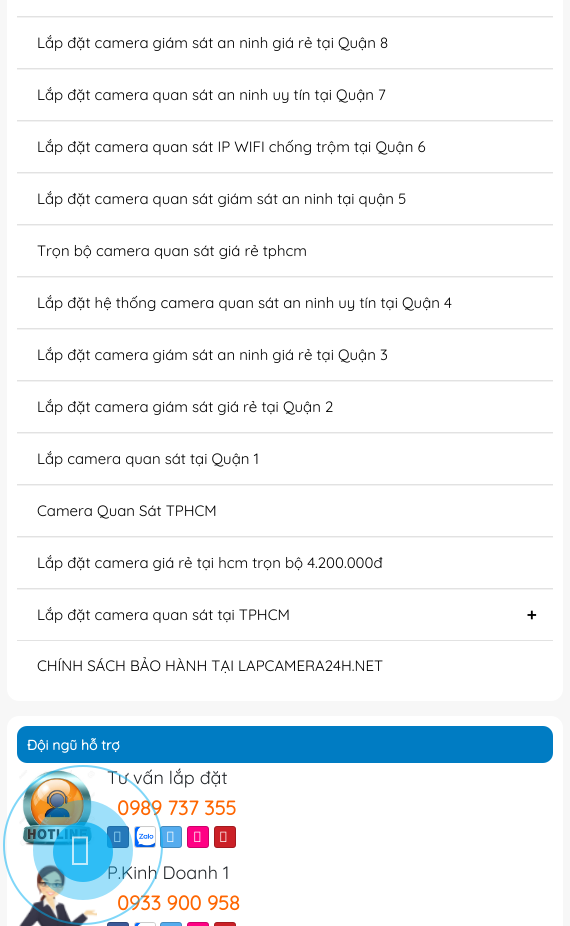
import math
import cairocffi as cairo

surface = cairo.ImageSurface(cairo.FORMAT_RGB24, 570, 926)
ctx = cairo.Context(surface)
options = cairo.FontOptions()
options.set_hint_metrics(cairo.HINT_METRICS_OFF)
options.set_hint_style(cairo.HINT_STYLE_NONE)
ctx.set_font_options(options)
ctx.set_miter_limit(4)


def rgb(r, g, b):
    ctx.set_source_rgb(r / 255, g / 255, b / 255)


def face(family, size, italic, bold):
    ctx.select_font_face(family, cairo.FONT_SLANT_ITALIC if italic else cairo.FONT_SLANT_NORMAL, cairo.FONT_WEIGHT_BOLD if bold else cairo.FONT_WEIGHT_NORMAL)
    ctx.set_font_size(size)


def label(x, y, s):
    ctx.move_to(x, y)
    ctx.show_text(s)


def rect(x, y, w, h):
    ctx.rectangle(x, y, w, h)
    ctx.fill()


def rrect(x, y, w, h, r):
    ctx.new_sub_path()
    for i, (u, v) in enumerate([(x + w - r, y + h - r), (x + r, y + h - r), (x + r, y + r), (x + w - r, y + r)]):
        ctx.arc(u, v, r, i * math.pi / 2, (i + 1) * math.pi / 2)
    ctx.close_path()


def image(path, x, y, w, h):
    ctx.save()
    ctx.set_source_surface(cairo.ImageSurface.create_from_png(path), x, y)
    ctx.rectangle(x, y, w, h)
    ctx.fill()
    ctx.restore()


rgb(247, 247, 247)
ctx.paint()
rgb(255, 255, 255)
rrect(7, -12, 556, 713, 12)
ctx.fill()
rgb(226, 226, 226)
rect(17, 16, 536, 1)
rgb(242, 242, 242)
rect(17, 17, 536, 1)
rgb(226, 226, 226)
rect(17, 68, 536, 1)
face('Quicksand', 15, 0, 0)
rgb(0, 0, 0)
label(37, 48, 'Lắp đặt camera giám sát an ninh giá rẻ tại Quận 8')
rgb(242, 242, 242)
rect(17, 69, 536, 1)
rgb(226, 226, 226)
rect(17, 120, 536, 1)
rgb(0, 0, 0)
label(37, 100, 'Lắp đặt camera quan sát an ninh uy tín tại Quận 7')
rgb(242, 242, 242)
rect(17, 121, 536, 1)
rgb(226, 226, 226)
rect(17, 172, 536, 1)
rgb(0, 0, 0)
label(37, 152, 'Lắp đặt camera quan sát IP WIFI chống trộm tại Quận 6')
rgb(242, 242, 242)
rect(17, 173, 536, 1)
rgb(226, 226, 226)
rect(17, 224, 536, 1)
rgb(0, 0, 0)
label(37, 204, 'Lắp đặt camera quan sát giám sát an ninh tại quận 5')
rgb(242, 242, 242)
rect(17, 225, 536, 1)
rgb(226, 226, 226)
rect(17, 276, 536, 1)
rgb(0, 0, 0)
label(37, 256, 'Trọn bộ camera quan sát giá rẻ tphcm')
rgb(242, 242, 242)
rect(17, 277, 536, 1)
rgb(226, 226, 226)
rect(17, 328, 536, 1)
rgb(0, 0, 0)
label(37, 308, 'Lắp đặt hệ thống camera quan sát an ninh uy tín tại Quận 4')
rgb(242, 242, 242)
rect(17, 329, 536, 1)
rgb(226, 226, 226)
rect(17, 380, 536, 1)
rgb(0, 0, 0)
label(37, 360, 'Lắp đặt camera giám sát an ninh giá rẻ tại Quận 3')
rgb(242, 242, 242)
rect(17, 381, 536, 1)
rgb(226, 226, 226)
rect(17, 432, 536, 1)
rgb(0, 0, 0)
label(37, 412, 'Lắp đặt camera giám sát giá rẻ tại Quận 2')
rgb(242, 242, 242)
rect(17, 433, 536, 1)
rgb(226, 226, 226)
rect(17, 484, 536, 1)
rgb(0, 0, 0)
label(37, 464, 'Lắp camera quan sát tại Quận 1')
rgb(242, 242, 242)
rect(17, 485, 536, 1)
rgb(226, 226, 226)
rect(17, 536, 536, 1)
rgb(0, 0, 0)
label(37, 516, 'Camera Quan Sát TPHCM')
rgb(242, 242, 242)
rect(17, 537, 536, 1)
rgb(226, 226, 226)
rect(17, 588, 536, 1)
rgb(0, 0, 0)
label(37, 568, 'Lắp đặt camera giá rẻ tại hcm trọn bộ 4.200.000đ')
rgb(242, 242, 242)
rect(17, 589, 536, 1)
rgb(226, 226, 226)
rect(17, 640, 536, 1)
rgb(0, 0, 0)
label(37, 620, 'Lắp đặt camera quan sát tại TPHCM')
face('DejaVu Sans Mono', 16, 0, 1)
label(527, 620, '+')
face('Quicksand', 15, 0, 0)
label(37, 671, 'CHÍNH SÁCH BẢO HÀNH TẠI LAPCAMERA24H.NET')
rgb(255, 255, 255)
rrect(7, 716, 556, 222, 12)
ctx.fill()
rgb(0, 124, 195)
rrect(17, 726, 536, 37, 10)
ctx.fill()
face('Quicksand', 14, 0, 1)
rgb(255, 255, 255)
label(27, 750, 'Đội ngũ hỗ trợ')
image('image0.png', 19, 770, 76, 76)
face('Quicksand', 18, 0, 0)
rgb(33, 37, 41)
label(107, 784, 'Tư vấn lắp đặt')
face('Quicksand', 20, 0, 1)
rgb(254, 102, 2)
label(117, 815, '0989 737 355')
rgb(59, 89, 152)
rrect(107, 826, 22, 22, 3)
ctx.fill()
rrect(107.5, 826.5, 21, 21, 2.5)
ctx.set_source_rgba(0, 0, 0, 0.2)
ctx.set_line_width(1)
ctx.stroke()
image('image1.png', 114, 831, 7, 11)
rrect(134.5, 826.5, 21, 21, 2.5)
rgb(204, 204, 204)
ctx.stroke()
image('image2.png', 135, 827, 20, 20)
rgb(85, 172, 238)
rrect(160, 826, 22, 22, 3)
ctx.fill()
rrect(160.5, 826.5, 21, 21, 2.5)
ctx.set_source_rgba(0, 0, 0, 0.2)
ctx.stroke()
image('image3.png', 167, 831, 7, 11)
rgb(255, 0, 132)
rrect(187, 826, 22, 22, 3)
ctx.fill()
rrect(187.5, 826.5, 21, 21, 2.5)
ctx.set_source_rgba(0, 0, 0, 0.2)
ctx.stroke()
image('image4.png', 194, 831, 7, 11)
rgb(203, 32, 39)
rrect(214, 826, 22, 22, 3)
ctx.fill()
rrect(214.5, 826.5, 21, 21, 2.5)
ctx.set_source_rgba(0, 0, 0, 0.2)
ctx.stroke()
image('image5.png', 220, 831, 7, 11)
image('image6.png', 19, 864, 78, 62)
face('Quicksand', 18, 0, 0)
rgb(33, 37, 41)
label(107, 879, 'P.Kinh Doanh 1')
face('Quicksand', 20, 0, 1)
rgb(254, 102, 2)
label(117, 910, '0933 900 958')
rgb(59, 89, 152)
rrect(107, 922, 22, 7, 3)
ctx.fill()
rrect(107.5, 922.5, 21, 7, 2.5)
ctx.set_source_rgba(0, 0, 0, 0.2)
ctx.stroke()
rrect(134.5, 922.5, 21, 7, 2.5)
rgb(204, 204, 204)
ctx.stroke()
image('image7.png', 135, 923, 20, 3)
rgb(85, 172, 238)
rrect(160, 922, 22, 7, 3)
ctx.fill()
rrect(160.5, 922.5, 21, 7, 2.5)
ctx.set_source_rgba(0, 0, 0, 0.2)
ctx.stroke()
rgb(255, 0, 132)
rrect(187, 922, 22, 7, 3)
ctx.fill()
rrect(187.5, 922.5, 21, 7, 2.5)
ctx.set_source_rgba(0, 0, 0, 0.2)
ctx.stroke()
rgb(203, 32, 39)
rrect(214, 922, 22, 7, 3)
ctx.fill()
rrect(214.5, 922.5, 21, 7, 2.5)
ctx.set_source_rgba(0, 0, 0, 0.2)
ctx.stroke()
ctx.arc(83, 845, 79, 0, 2 * math.pi)
ctx.set_source_rgba(0, 0.686, 0.949, 0.5)
ctx.set_line_width(2)
ctx.stroke()
ctx.set_source_rgba(0, 0.686, 0.949, 0.38)
ctx.arc(83, 850, 50, 0, 2 * math.pi)
ctx.fill()
ctx.set_source_rgba(0, 0.686, 0.949, 0.7)
ctx.arc(83, 852, 30, 0, 2 * math.pi)
ctx.fill()
ctx.set_source_rgba(1, 1, 1, 0.7)
ctx.new_path()
ctx.move_to(72, 865)
ctx.line_to(72, 836.5)
ctx.line_to(88, 836.5)
ctx.line_to(88, 865)
ctx.close_path()
ctx.move_to(74, 863)
ctx.line_to(86, 863)
ctx.line_to(86, 838.5)
ctx.line_to(74, 838.5)
ctx.close_path()
ctx.fill()
surface.write_to_png('render.png')
